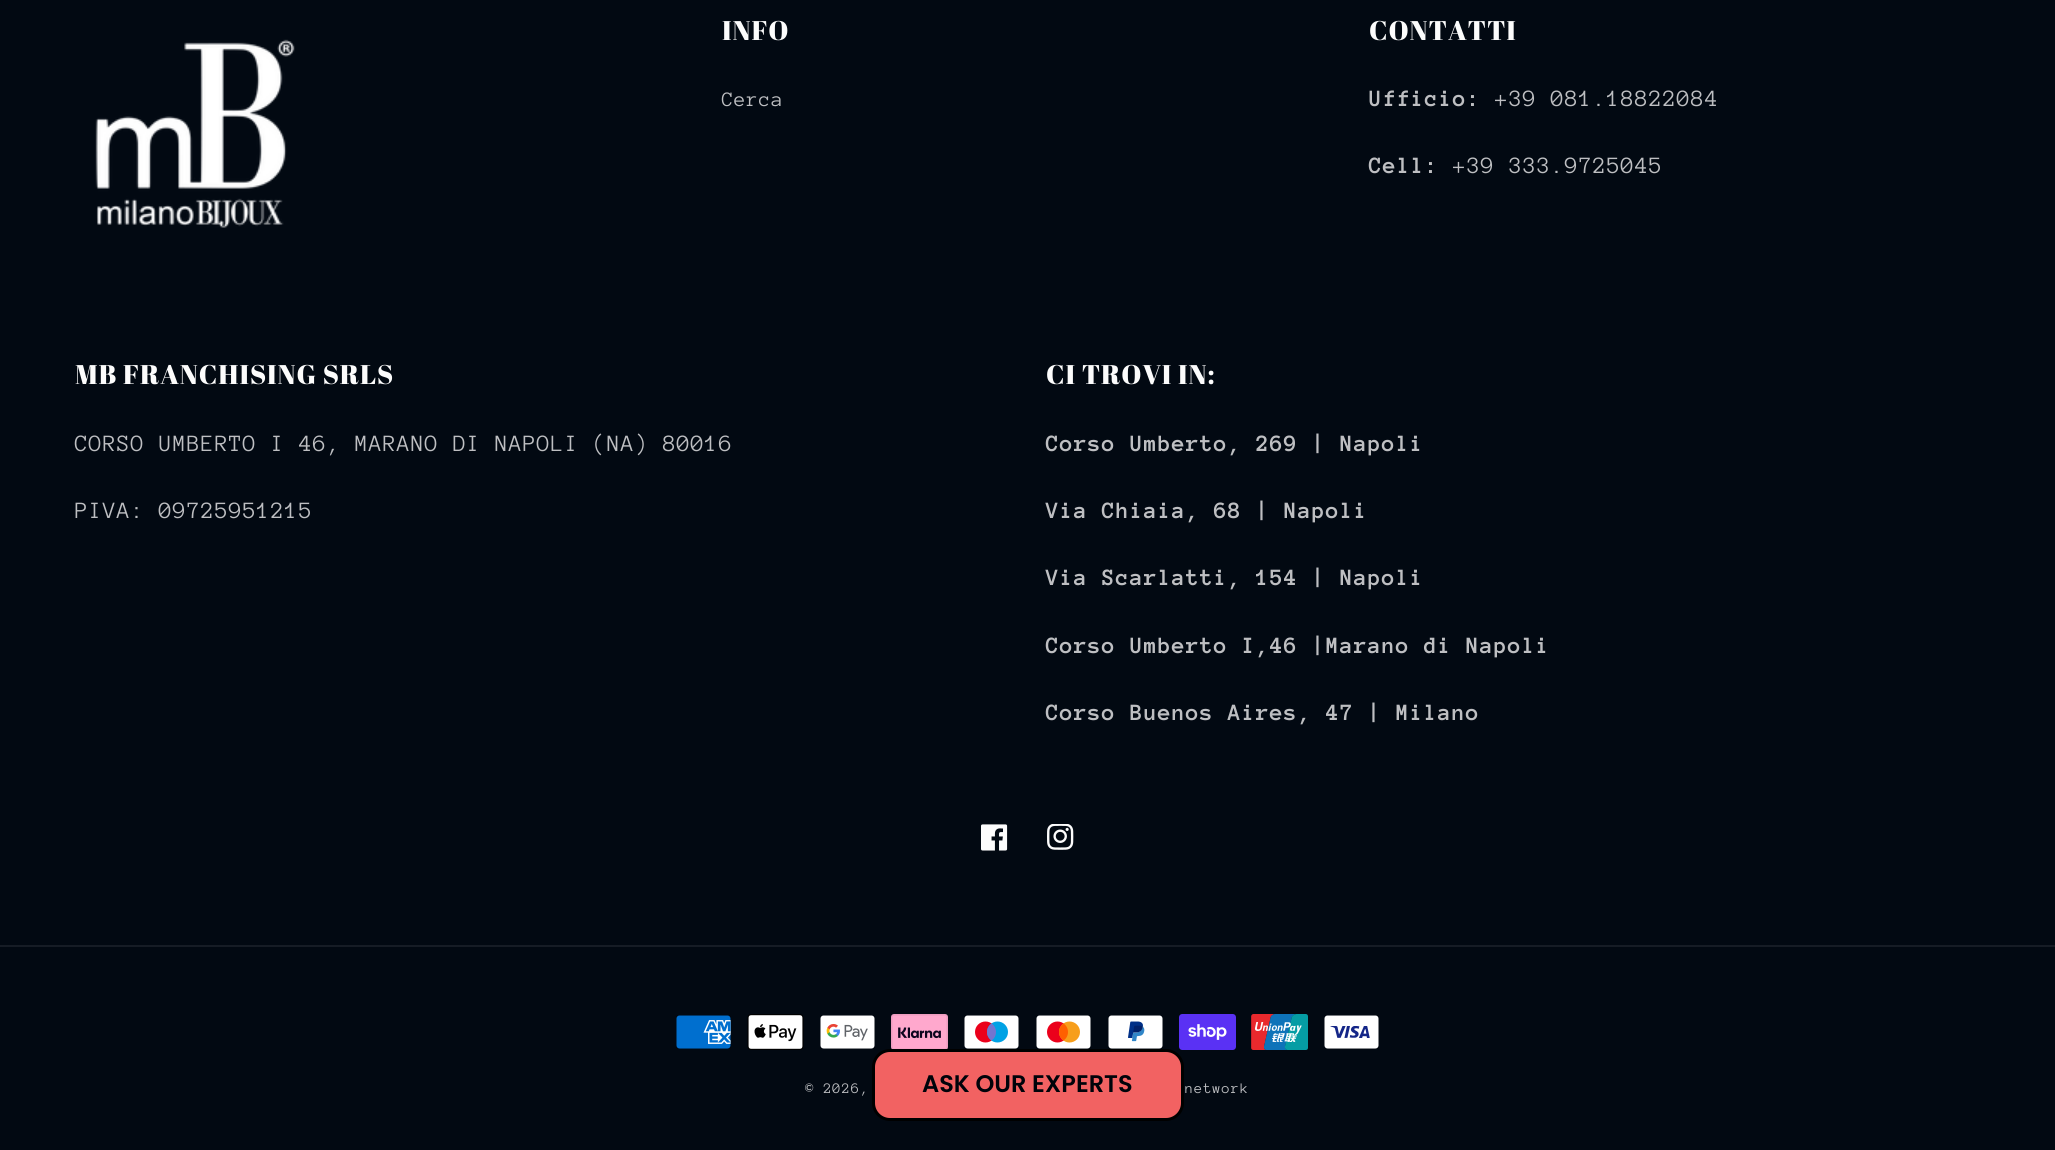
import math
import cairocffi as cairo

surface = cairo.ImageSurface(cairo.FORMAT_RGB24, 2055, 1150)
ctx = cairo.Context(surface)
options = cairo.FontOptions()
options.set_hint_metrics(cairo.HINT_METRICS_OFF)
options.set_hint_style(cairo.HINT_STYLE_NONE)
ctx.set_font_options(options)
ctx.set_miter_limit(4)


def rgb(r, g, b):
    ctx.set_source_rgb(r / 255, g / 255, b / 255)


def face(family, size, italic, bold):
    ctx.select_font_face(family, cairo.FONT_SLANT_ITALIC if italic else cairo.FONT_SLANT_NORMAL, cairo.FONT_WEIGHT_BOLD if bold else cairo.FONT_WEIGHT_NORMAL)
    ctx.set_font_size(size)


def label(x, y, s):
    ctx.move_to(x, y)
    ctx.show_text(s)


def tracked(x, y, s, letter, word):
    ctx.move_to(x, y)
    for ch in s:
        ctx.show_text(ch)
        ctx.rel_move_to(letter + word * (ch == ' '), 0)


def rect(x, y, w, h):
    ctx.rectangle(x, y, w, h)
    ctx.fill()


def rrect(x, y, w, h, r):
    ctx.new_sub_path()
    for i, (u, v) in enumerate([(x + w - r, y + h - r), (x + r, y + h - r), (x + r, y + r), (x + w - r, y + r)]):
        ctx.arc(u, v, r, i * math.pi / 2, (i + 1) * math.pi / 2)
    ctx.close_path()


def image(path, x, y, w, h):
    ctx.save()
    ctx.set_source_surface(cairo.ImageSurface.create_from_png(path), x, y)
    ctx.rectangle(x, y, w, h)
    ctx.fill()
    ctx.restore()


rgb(2, 9, 18)
ctx.paint()
image('image0.png', 95, 39, 200, 189)
face('Abril Fatface', 27, 0, 0)
rgb(252, 252, 252)
tracked(722, 40, 'INFO', 0.9, 0)
face('Anonymous Pro', 21, 0, 0)
rgb(190, 191, 194)
tracked(722, 106, 'Cerca', 0.9, 0)
face('Abril Fatface', 27, 0, 0)
rgb(252, 252, 252)
tracked(1369, 40, 'CONTATTI', 0.9, 0)
face('Anonymous Pro', 24, 0, 1)
rgb(190, 191, 194)
tracked(1369, 106, 'Ufficio:', 0.9, 0)
face('Anonymous Pro', 24, 0, 0)
tracked(1495, 106, '+39 081.18822084', 0.9, 0)
face('Anonymous Pro', 24, 0, 1)
tracked(1369, 173, 'Cell:', 0.9, 0)
face('Anonymous Pro', 24, 0, 0)
tracked(1453, 173, '+39 333.9725045', 0.9, 0)
face('Abril Fatface', 27, 0, 0)
rgb(252, 252, 252)
tracked(75, 384, 'MB FRANCHISING SRLS', 0.9, 0)
face('Anonymous Pro', 24, 0, 0)
rgb(190, 191, 194)
tracked(75, 451, 'CORSO UMBERTO I 46, MARANO DI NAPOLI (NA) 80016', 0.9, 0)
tracked(75, 518, 'PIVA: 09725951215', 0.9, 0)
face('Abril Fatface', 27, 0, 0)
rgb(252, 252, 252)
tracked(1046, 384, 'CI TROVI IN:', 0.9, 0)
face('Anonymous Pro', 24, 0, 1)
rgb(190, 191, 194)
tracked(1046, 451, 'Corso Umberto, 269 | Napoli', 0.9, 0)
tracked(1046, 518, 'Via Chiaia, 68 | Napoli', 0.9, 0)
tracked(1046, 585, 'Via Scarlatti, 154 | Napoli', 0.9, 0)
tracked(1046, 653, 'Corso Umberto I,46 |Marano di Napoli', 0.9, 0)
tracked(1046, 720, 'Corso Buenos Aires, 47 | Milano', 0.9, 0)
image('image1.png', 981, 824, 27, 27)
image('image2.png', 1047, 824, 27, 26)
rgb(22, 28, 37)
rect(0, 945, 2055, 2)
image('image3.png', 676, 1015, 55, 34)
image('image4.png', 747, 1014, 57, 36)
image('image5.png', 820, 1015, 55, 34)
image('image6.png', 891, 1014, 57, 35)
image('image7.png', 964, 1015, 55, 34)
image('image8.png', 1036, 1015, 55, 34)
image('image9.png', 1108, 1015, 55, 34)
image('image10.png', 1179, 1014, 57, 36)
image('image11.png', 1251, 1014, 57, 36)
image('image12.png', 1324, 1015, 55, 34)
face('Anonymous Pro', 15, 0, 0)
rgb(190, 191, 194)
tracked(805, 1093, '© 2026,', 1, 0)
tracked(1185, 1093, 'network', 1, 0)
rgb(242, 98, 98)
rrect(873.5, 1050.5, 309, 69, 16.5)
ctx.fill_preserve()
rgb(0, 0, 0)
ctx.set_line_width(3)
ctx.stroke()
face('Poppins SemiBold', 24, 0, 0)
rgb(0, 3, 10)
label(922, 1092, 'ASK OUR EXPERTS')
surface.write_to_png('render.png')
